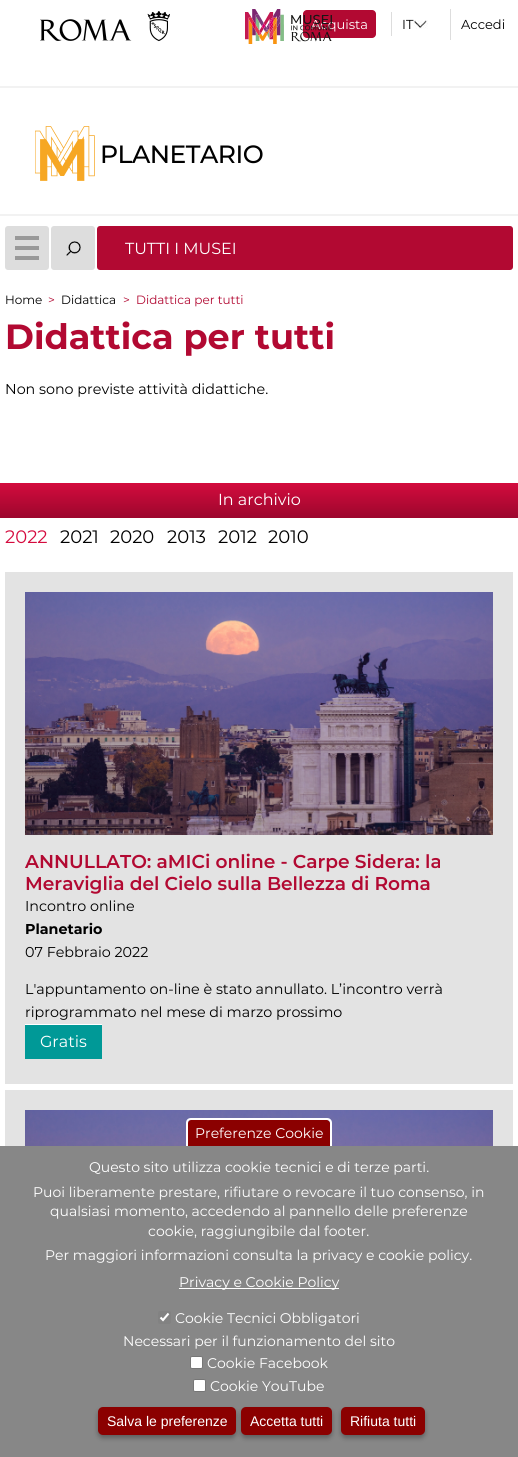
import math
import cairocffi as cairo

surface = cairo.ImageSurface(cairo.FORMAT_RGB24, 518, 1457)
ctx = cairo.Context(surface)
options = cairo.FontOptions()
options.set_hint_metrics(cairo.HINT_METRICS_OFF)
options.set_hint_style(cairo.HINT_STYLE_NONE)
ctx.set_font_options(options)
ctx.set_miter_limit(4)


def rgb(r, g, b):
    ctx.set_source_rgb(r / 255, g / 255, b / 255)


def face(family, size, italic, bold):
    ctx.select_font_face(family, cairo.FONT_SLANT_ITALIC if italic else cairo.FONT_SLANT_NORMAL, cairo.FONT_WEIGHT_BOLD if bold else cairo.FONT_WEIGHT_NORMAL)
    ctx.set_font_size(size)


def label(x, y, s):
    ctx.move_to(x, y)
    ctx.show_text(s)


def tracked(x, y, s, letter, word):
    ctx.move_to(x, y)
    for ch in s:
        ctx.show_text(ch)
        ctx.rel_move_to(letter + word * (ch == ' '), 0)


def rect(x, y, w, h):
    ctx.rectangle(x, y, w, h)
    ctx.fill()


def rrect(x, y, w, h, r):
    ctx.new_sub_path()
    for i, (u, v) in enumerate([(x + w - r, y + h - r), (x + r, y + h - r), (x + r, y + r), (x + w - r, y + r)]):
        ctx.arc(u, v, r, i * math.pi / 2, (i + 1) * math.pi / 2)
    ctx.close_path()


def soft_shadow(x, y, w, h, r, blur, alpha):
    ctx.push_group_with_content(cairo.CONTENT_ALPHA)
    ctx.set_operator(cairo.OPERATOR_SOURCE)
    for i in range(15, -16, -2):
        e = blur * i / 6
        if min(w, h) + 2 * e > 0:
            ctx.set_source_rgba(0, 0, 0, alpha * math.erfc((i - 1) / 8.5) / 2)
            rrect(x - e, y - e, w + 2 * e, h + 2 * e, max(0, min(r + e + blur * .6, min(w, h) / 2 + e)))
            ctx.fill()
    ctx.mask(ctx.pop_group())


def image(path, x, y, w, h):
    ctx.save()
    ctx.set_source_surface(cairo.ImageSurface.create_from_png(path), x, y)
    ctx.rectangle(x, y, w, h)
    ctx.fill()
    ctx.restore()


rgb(255, 255, 255)
ctx.paint()
image('image0.png', 40, 11, 130, 31)
rgb(178, 9, 50)
rrect(303, 10, 73, 28, 4)
ctx.fill()
face('Montserrat', 13, 0, 0)
rgb(255, 255, 255)
label(311, 29, 'Acquista')
image('image1.png', 245, 9, 87, 35)
image('image2.png', 413, 20, 15, 9)
rgb(221, 221, 221)
rect(391, 12, 1, 24)
rgb(0, 0, 0)
label(402, 29, 'IT')
rgb(221, 221, 221)
rect(450, 9, 1, 31)
rgb(0, 0, 0)
label(461, 29, 'Accedi')
rgb(242, 242, 242)
rect(0, 86, 518, 2)
rect(0, 214, 518, 2)
image('image3.png', 35, 126, 60, 55)
face('Montserrat Medium', 25, 0, 0)
rgb(0, 0, 0)
tracked(100, 163, 'PLANETARIO', -0.5, 0)
rgb(221, 221, 221)
rrect(5, 226, 44, 44, 3)
ctx.fill()
image('image4.png', 15, 236, 24, 24)
rrect(51, 226, 44, 44, 3)
ctx.fill()
image('image5.png', 66, 241, 15, 15)
rgb(178, 9, 50)
rrect(97, 226, 416, 44, 3)
ctx.fill()
face('Montserrat', 16, 0, 0)
rgb(255, 255, 255)
label(125, 254, 'TUTTI I MUSEI')
face('Montserrat', 12, 0, 0)
rgb(0, 0, 0)
label(5, 304, 'Home')
rgb(178, 9, 50)
label(48, 304, '>')
rgb(0, 0, 0)
label(61, 304, 'Didattica')
rgb(178, 9, 50)
label(123, 304, '>')
label(136, 304, 'Didattica per tutti')
face('Montserrat', 35, 0, 1)
label(5, 349, 'Didattica per tutti')
face('Montserrat', 14.3, 0, 0)
rgb(0, 0, 0)
label(5, 394, 'Non sono previste attività didattiche.')
gradient = cairo.LinearGradient(259, 482, 259, 518)
gradient.add_color_stop_rgba(0, 0.835, 0.043, 0.243, 1)
gradient.add_color_stop_rgba(1, 0.612, 0.027, 0.176, 1)
ctx.set_source(gradient)
rect(0, 483, 518, 35)
face('Montserrat', 16, 0, 0)
rgb(255, 255, 255)
label(218, 505, 'In archivio')
face('Montserrat', 18, 0, 0)
rgb(213, 11, 62)
label(5, 543, '2022')
rgb(0, 0, 0)
label(60, 543, '2021')
label(110, 543, '2020')
label(167, 543, '2013')
label(218, 543, '2012')
label(268, 543, '2010')
rgb(227, 227, 227)
rect(5, 572, 508, 512)
image('image6.png', 25, 592, 468, 243)
face('Montserrat SemiBold', 18.6, 0, 0)
rgb(178, 9, 50)
label(25, 868, 'ANNULLATO: aMICi online - Carpe Sidera: la')
label(25, 890, 'Meraviglia del Cielo sulla Bellezza di Roma')
face('Montserrat', 14.3, 0, 0)
rgb(0, 0, 0)
label(25, 911, 'Incontro online')
face('Montserrat', 14.3, 0, 1)
label(25, 934, 'Planetario')
face('Montserrat', 14.3, 0, 0)
label(25, 957, '07 Febbraio 2022')
label(25, 994, 'L\'appuntamento on-line è stato annullato. L’incontro verrà')
label(25, 1017, 'riprogrammato nel mese di marzo prossimo')
rgb(0, 153, 151)
rect(25, 1025, 77, 34)
rgb(255, 255, 255)
rect(25, 1024, 77, 1)
face('Montserrat', 16, 0, 0)
label(40, 1047, 'Gratis')
rgb(227, 227, 227)
rect(5, 1090, 508, 56)
image('image7.png', 25, 1110, 468, 36)
rgb(135, 135, 135)
rect(0, 1146, 518, 311)
rgb(139, 0, 0)
ctx.new_path()
ctx.move_to(191, 1120)
ctx.line_to(327, 1120)
ctx.curve_to(328.5, 1120, 330, 1121.5, 330, 1123)
ctx.line_to(330, 1146)
ctx.line_to(188, 1146)
ctx.line_to(188, 1123)
ctx.curve_to(188, 1121.5, 189.5, 1120, 191, 1120)
ctx.close_path()
ctx.fill()
rgb(255, 255, 255)
ctx.set_fill_rule(cairo.FILL_RULE_EVEN_ODD)
ctx.new_path()
ctx.move_to(191, 1118)
ctx.line_to(327, 1118)
ctx.curve_to(330, 1118, 332, 1120, 332, 1123)
ctx.line_to(332, 1146)
ctx.line_to(186, 1146)
ctx.line_to(186, 1123)
ctx.curve_to(186, 1120, 188, 1118, 191, 1118)
ctx.close_path()
ctx.move_to(191, 1120)
ctx.line_to(327, 1120)
ctx.curve_to(328, 1120, 330, 1121, 330, 1123)
ctx.line_to(330, 1146)
ctx.line_to(188, 1146)
ctx.line_to(188, 1123)
ctx.curve_to(188, 1121, 189, 1120, 191, 1120)
ctx.close_path()
ctx.fill()
face('Montserrat', 14, 0, 0)
label(195, 1138, 'Preferenze Cookie')
label(89, 1172, 'Questo sito utilizza cookie tecnici e di terze parti.')
label(33, 1197, 'Puoi liberamente prestare, rifiutare o revocare il tuo consenso, in')
label(50, 1216, 'qualsiasi momento, accedendo al pannello delle preferenze')
label(148, 1236, 'cookie, raggiungibile dal footer.')
label(45, 1260, 'Per maggiori informazioni consulta la privacy e cookie policy.')
rect(179, 1288, 160, 1)
label(179, 1287, 'Privacy e Cookie Policy')
rgb(130, 130, 130)
rrect(158, 1311, 13, 13, 2)
ctx.fill()
ctx.new_path()
ctx.move_to(160.5, 1317.5)
ctx.line_to(163, 1320)
ctx.line_to(168.5, 1313.5)
rgb(255, 255, 255)
ctx.set_line_width(2.1)
ctx.stroke()
label(175, 1323, 'Cookie Tecnici Obbligatori')
label(123, 1346, 'Necessari per il funzionamento del sito')
rrect(190.5, 1356.5, 12, 12, 1.5)
ctx.fill_preserve()
rgb(118, 118, 118)
ctx.set_line_width(1)
ctx.stroke()
rgb(255, 255, 255)
label(207, 1368, 'Cookie Facebook')
rrect(193.5, 1379.5, 12, 12, 1.5)
ctx.fill_preserve()
rgb(118, 118, 118)
ctx.stroke()
rgb(255, 255, 255)
label(210, 1391, 'Cookie YouTube')
rgb(0, 0, 0)
soft_shadow(98, 1410, 138, 28, 5, 2.5, 0.3)
rgb(139, 0, 0)
rrect(98, 1407, 138, 28, 5)
ctx.fill()
face('Liberation Sans', 14, 0, 0)
rgb(255, 255, 255)
label(107, 1426, 'Salva le preferenze')
rgb(0, 0, 0)
soft_shadow(241, 1410, 91, 28, 5, 2.5, 0.3)
rgb(139, 0, 0)
rrect(241, 1407, 91, 28, 5)
ctx.fill()
rgb(255, 255, 255)
label(250, 1426, 'Accetta tutti')
rgb(0, 0, 0)
soft_shadow(341, 1410, 84, 28, 5, 2.5, 0.3)
rgb(139, 0, 0)
rrect(341, 1407, 84, 28, 5)
ctx.fill()
rgb(255, 255, 255)
label(350, 1426, 'Rifiuta tutti')
surface.write_to_png('render.png')
